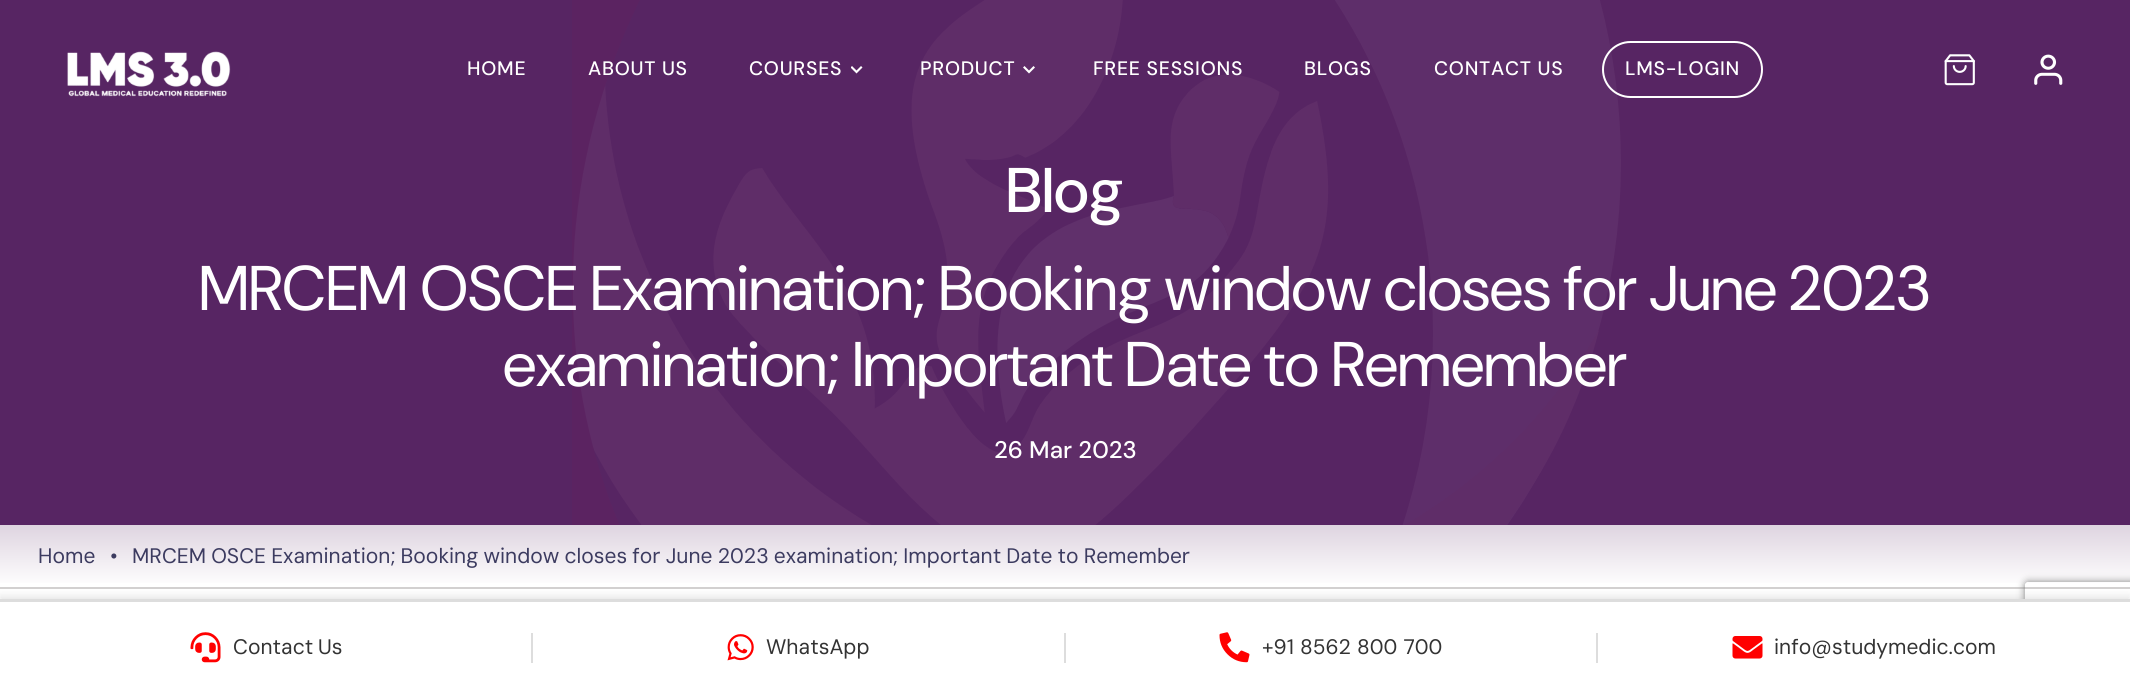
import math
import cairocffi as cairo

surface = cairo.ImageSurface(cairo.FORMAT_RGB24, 2130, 692)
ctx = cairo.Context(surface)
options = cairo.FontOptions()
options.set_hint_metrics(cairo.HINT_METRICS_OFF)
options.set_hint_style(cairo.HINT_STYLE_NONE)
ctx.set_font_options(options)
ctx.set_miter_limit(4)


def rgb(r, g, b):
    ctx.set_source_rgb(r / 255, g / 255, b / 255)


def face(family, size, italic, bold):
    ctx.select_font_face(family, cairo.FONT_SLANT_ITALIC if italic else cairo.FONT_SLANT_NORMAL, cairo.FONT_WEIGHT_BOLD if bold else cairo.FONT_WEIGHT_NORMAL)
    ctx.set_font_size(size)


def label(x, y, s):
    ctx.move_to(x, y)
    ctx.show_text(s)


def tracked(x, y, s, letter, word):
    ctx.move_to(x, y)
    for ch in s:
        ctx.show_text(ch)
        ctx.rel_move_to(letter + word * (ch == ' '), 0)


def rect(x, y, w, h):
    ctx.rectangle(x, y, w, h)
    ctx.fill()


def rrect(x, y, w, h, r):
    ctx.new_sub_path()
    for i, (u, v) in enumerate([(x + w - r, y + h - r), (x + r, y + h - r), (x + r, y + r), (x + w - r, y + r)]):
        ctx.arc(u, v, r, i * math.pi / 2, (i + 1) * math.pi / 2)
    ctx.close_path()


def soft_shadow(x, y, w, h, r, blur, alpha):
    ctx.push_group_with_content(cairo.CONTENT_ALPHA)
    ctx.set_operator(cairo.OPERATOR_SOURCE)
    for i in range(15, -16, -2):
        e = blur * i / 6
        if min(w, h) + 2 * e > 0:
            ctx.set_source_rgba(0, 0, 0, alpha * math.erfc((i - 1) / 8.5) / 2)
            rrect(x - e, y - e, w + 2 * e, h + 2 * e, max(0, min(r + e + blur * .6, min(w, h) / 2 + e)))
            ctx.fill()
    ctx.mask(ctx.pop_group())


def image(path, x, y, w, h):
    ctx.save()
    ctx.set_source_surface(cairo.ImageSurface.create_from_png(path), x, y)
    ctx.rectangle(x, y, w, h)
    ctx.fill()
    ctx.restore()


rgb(255, 255, 255)
ctx.paint()
rgb(87, 37, 99)
rect(0, 0, 2130, 525)
image('image0.png', 67, 51, 164, 46)
face('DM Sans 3 Medium', 19.5, 0, 0)
rgb(255, 255, 255)
tracked(467, 75, 'HOME', 0.75, 0)
image('image5.png', 572, 0, 1049, 525)
tracked(588, 75, 'ABOUT US', 0.75, 0)
tracked(749, 75, 'COURSES', 0.75, 0)
image('image1.png', 851, 66, 12, 8)
tracked(920, 75, 'PRODUCT', 0.75, 0)
image('image2.png', 1023, 66, 12, 8)
tracked(1093, 75, 'FREE SESSIONS', 0.75, 0)
tracked(1304, 75, 'BLOGS', 0.75, 0)
tracked(1434, 75, 'CONTACT US', 0.75, 0)
rrect(1603, 42, 159, 55, 27.5)
ctx.stroke()
tracked(1625, 75, 'LMS-LOGIN', 0.75, 0)
image('image3.png', 1944, 54, 31, 32)
image('image4.png', 2034, 54, 29, 31)
face('DM Sans Medium', 63, 0, 0)
label(1006, 212, 'Blog')
face('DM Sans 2', 63, 0, 0)
label(199, 310, 'MRCEM OSCE Examination; Booking window closes for June 2023')
label(503, 386, 'examination; Important Date to Remember')
face('DM Sans 2 Medium', 24, 0, 0)
label(994, 458, '26 Mar 2023')
gradient = cairo.LinearGradient(1065, 525, 1065, 587)
gradient.add_color_stop_rgba(0, 0.871, 0.831, 0.878, 1)
gradient.add_color_stop_rgba(1, 1, 1, 1, 1)
ctx.set_source(gradient)
rect(0, 525, 2130, 58)
rgb(210, 208, 208)
rect(0, 587, 2130, 2)
face('DM Sans', 21, 0, 0)
rgb(60, 59, 96)
label(38, 563, 'Home')
label(110, 563, '•')
tracked(132, 563, 'MRCEM OSCE Examination; Booking window closes for June 2023 examination; Important Date to Remember', 0, -0.5)
rgb(0, 0, 0)
soft_shadow(0, 596, 2130, 94, 0, 4, 0.1)
ctx.save()
ctx.set_fill_rule(cairo.FILL_RULE_EVEN_ODD)
ctx.new_path()
ctx.move_to(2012, 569)
ctx.line_to(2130, 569)
ctx.line_to(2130, 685)
ctx.line_to(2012, 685)
ctx.close_path()
ctx.move_to(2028, 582)
ctx.line_to(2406, 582)
ctx.curve_to(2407.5, 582, 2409, 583.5, 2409, 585)
ctx.line_to(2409, 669)
ctx.curve_to(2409, 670.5, 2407.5, 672, 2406, 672)
ctx.line_to(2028, 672)
ctx.curve_to(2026.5, 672, 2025, 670.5, 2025, 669)
ctx.line_to(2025, 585)
ctx.curve_to(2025, 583.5, 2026.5, 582, 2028, 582)
ctx.close_path()
ctx.clip()
rgb(128, 128, 128)
soft_shadow(2025, 582, 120, 90, 3, 4, 1)
ctx.restore()
rgb(255, 255, 255)
rect(0, 602, 2130, 90)
rgb(221, 221, 221)
rect(0, 599, 2130, 3)
image('image6.png', 190, 632, 31, 31)
rgb(51, 51, 51)
tracked(233, 654, 'Contact Us', 0, -1)
rgb(221, 221, 221)
rect(531, 633, 2, 30)
image('image7.png', 727, 634, 27, 27)
rgb(51, 51, 51)
label(766, 654, 'WhatsApp')
rgb(221, 221, 221)
rect(1064, 633, 2, 30)
image('image8.png', 1219, 632, 31, 31)
rgb(51, 51, 51)
tracked(1262, 654, '+91 8562 800 700', 0, 0.5)
rgb(221, 221, 221)
rect(1596, 633, 2, 30)
image('image9.png', 1732, 636, 31, 23)
rgb(51, 51, 51)
label(1774, 654, 'info@studymedic.com')
surface.write_to_png('render.png')
